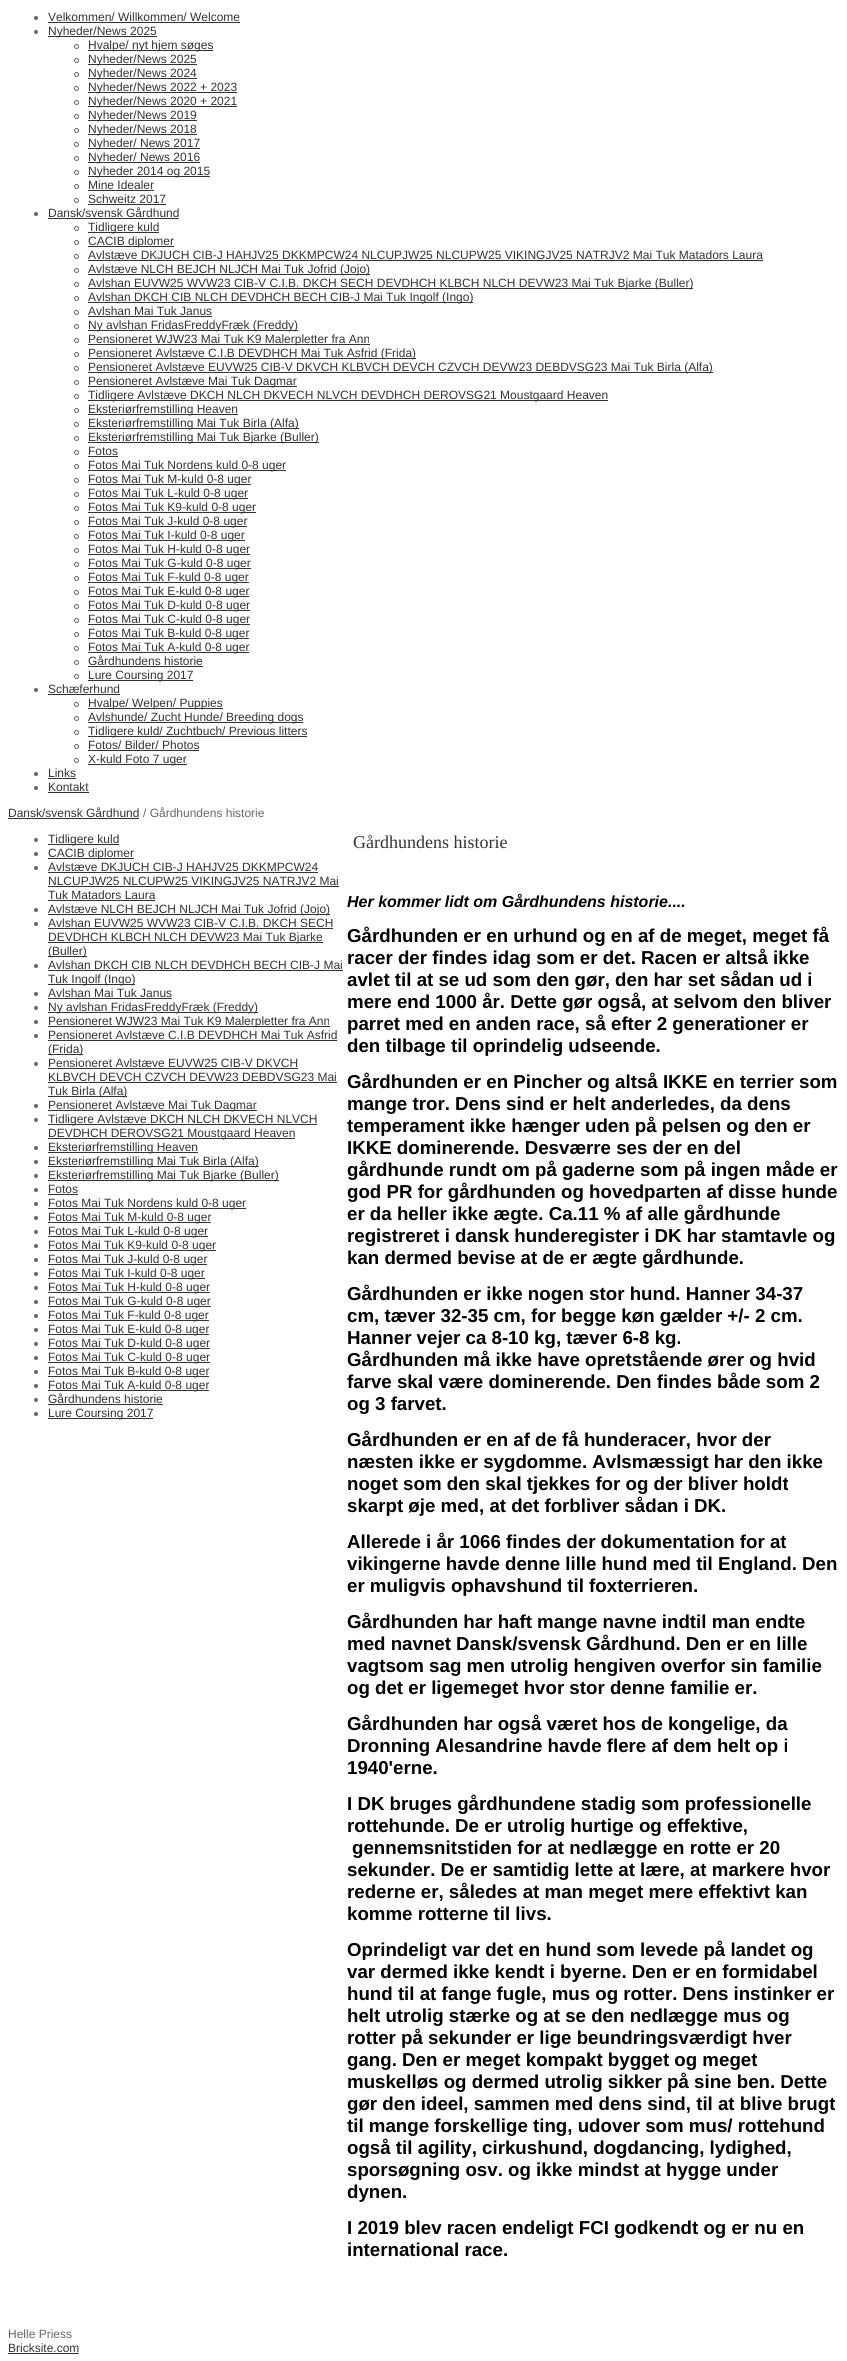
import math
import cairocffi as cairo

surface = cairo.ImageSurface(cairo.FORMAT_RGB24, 847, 2361)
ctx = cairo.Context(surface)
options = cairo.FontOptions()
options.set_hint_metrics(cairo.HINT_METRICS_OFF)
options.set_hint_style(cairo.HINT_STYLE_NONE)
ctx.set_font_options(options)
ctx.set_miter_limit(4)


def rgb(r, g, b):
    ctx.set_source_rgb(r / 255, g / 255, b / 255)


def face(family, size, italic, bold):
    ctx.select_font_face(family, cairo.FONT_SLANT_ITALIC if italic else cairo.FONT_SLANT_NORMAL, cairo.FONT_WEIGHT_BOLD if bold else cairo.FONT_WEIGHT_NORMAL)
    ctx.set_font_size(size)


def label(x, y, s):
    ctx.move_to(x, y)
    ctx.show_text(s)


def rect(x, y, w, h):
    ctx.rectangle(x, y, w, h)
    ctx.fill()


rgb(255, 255, 255)
ctx.paint()
rgb(102, 102, 102)
ctx.arc(36, 18, 2, 0, 2 * math.pi)
ctx.fill()
face('Liberation Sans', 12, 0, 0)
rgb(51, 51, 51)
label(48, 21, 'Velkommen/ Willkommen/ Welcome')
rect(48, 22, 192, 1)
rgb(102, 102, 102)
ctx.new_path()
ctx.arc(36, 32, 2, 0, 2 * math.pi)
ctx.fill()
rgb(51, 51, 51)
rect(48, 36, 109, 1)
label(48, 35, 'Nyheder/News 2025')
ctx.new_path()
ctx.arc(76.5, 46.5, 2, 0, 2 * math.pi)
rgb(102, 102, 102)
ctx.set_line_width(1)
ctx.stroke()
rgb(51, 51, 51)
rect(88, 50, 125, 1)
label(88, 49, 'Hvalpe/ nyt hjem søges')
ctx.new_path()
ctx.arc(76.5, 60.5, 2, 0, 2 * math.pi)
rgb(102, 102, 102)
ctx.stroke()
rgb(51, 51, 51)
rect(88, 64, 109, 1)
label(88, 63, 'Nyheder/News 2025')
ctx.new_path()
ctx.arc(76.5, 74.5, 2, 0, 2 * math.pi)
rgb(102, 102, 102)
ctx.stroke()
rgb(51, 51, 51)
rect(88, 78, 109, 1)
label(88, 77, 'Nyheder/News 2024')
ctx.new_path()
ctx.arc(76.5, 88.5, 2, 0, 2 * math.pi)
rgb(102, 102, 102)
ctx.stroke()
rgb(51, 51, 51)
rect(88, 92, 149, 1)
label(88, 91, 'Nyheder/News 2022 + 2023')
ctx.new_path()
ctx.arc(76.5, 102.5, 2, 0, 2 * math.pi)
rgb(102, 102, 102)
ctx.stroke()
rgb(51, 51, 51)
rect(88, 106, 149, 1)
label(88, 105, 'Nyheder/News 2020 + 2021')
ctx.new_path()
ctx.arc(76.5, 116.5, 2, 0, 2 * math.pi)
rgb(102, 102, 102)
ctx.stroke()
rgb(51, 51, 51)
rect(88, 120, 109, 1)
label(88, 119, 'Nyheder/News 2019')
ctx.new_path()
ctx.arc(76.5, 130.5, 2, 0, 2 * math.pi)
rgb(102, 102, 102)
ctx.stroke()
rgb(51, 51, 51)
rect(88, 134, 109, 1)
label(88, 133, 'Nyheder/News 2018')
ctx.new_path()
ctx.arc(76.5, 144.5, 2, 0, 2 * math.pi)
rgb(102, 102, 102)
ctx.stroke()
rgb(51, 51, 51)
rect(88, 148, 112, 1)
label(88, 147, 'Nyheder/ News 2017')
ctx.new_path()
ctx.arc(76.5, 158.5, 2, 0, 2 * math.pi)
rgb(102, 102, 102)
ctx.stroke()
rgb(51, 51, 51)
rect(88, 162, 112, 1)
label(88, 161, 'Nyheder/ News 2016')
ctx.new_path()
ctx.arc(76.5, 172.5, 2, 0, 2 * math.pi)
rgb(102, 102, 102)
ctx.stroke()
rgb(51, 51, 51)
rect(88, 176, 122, 1)
label(88, 175, 'Nyheder 2014 og 2015')
ctx.new_path()
ctx.arc(76.5, 186.5, 2, 0, 2 * math.pi)
rgb(102, 102, 102)
ctx.stroke()
rgb(51, 51, 51)
label(88, 189, 'Mine Idealer')
rect(88, 190, 66, 1)
ctx.new_path()
ctx.arc(76.5, 200.5, 2, 0, 2 * math.pi)
rgb(102, 102, 102)
ctx.stroke()
rgb(51, 51, 51)
label(88, 203, 'Schweitz 2017')
rect(88, 204, 78, 1)
rgb(102, 102, 102)
ctx.new_path()
ctx.arc(36, 214, 2, 0, 2 * math.pi)
ctx.fill()
rgb(51, 51, 51)
label(48, 217, 'Dansk/svensk Gårdhund')
rect(48, 218, 131, 1)
ctx.new_path()
ctx.arc(76.5, 228.5, 2, 0, 2 * math.pi)
rgb(102, 102, 102)
ctx.stroke()
rgb(51, 51, 51)
rect(88, 232, 71, 1)
label(88, 231, 'Tidligere kuld')
ctx.new_path()
ctx.arc(76.5, 242.5, 2, 0, 2 * math.pi)
rgb(102, 102, 102)
ctx.stroke()
rgb(51, 51, 51)
rect(88, 246, 86, 1)
label(88, 245, 'CACIB diplomer')
ctx.new_path()
ctx.arc(76.5, 256.5, 2, 0, 2 * math.pi)
rgb(102, 102, 102)
ctx.stroke()
rgb(51, 51, 51)
label(88, 259, 'Avlstæve DKJUCH CIB-J HAHJV25 DKKMPCW24 NLCUPJW25 NLCUPW25 VIKINGJV25 NATRJV2 Mai Tuk Matadors Laura')
rect(88, 260, 675, 1)
ctx.new_path()
ctx.arc(76.5, 270.5, 2, 0, 2 * math.pi)
rgb(102, 102, 102)
ctx.stroke()
rgb(51, 51, 51)
rect(88, 274, 282, 1)
label(88, 273, 'Avlstæve NLCH BEJCH NLJCH Mai Tuk Jofrid (Jojo)')
ctx.new_path()
ctx.arc(76.5, 284.5, 2, 0, 2 * math.pi)
rgb(102, 102, 102)
ctx.stroke()
rgb(51, 51, 51)
rect(88, 288, 605, 1)
label(88, 287, 'Avlshan EUVW25 WVW23 CIB-V C.I.B. DKCH SECH DEVDHCH KLBCH NLCH DEVW23 Mai Tuk Bjarke (Buller)')
ctx.new_path()
ctx.arc(76.5, 298.5, 2, 0, 2 * math.pi)
rgb(102, 102, 102)
ctx.stroke()
rgb(51, 51, 51)
rect(88, 302, 385, 1)
label(88, 301, 'Avlshan DKCH CIB NLCH DEVDHCH BECH CIB-J Mai Tuk Ingolf (Ingo)')
ctx.new_path()
ctx.arc(76.5, 312.5, 2, 0, 2 * math.pi)
rgb(102, 102, 102)
ctx.stroke()
rgb(51, 51, 51)
label(88, 315, 'Avlshan Mai Tuk Janus')
rect(88, 316, 124, 1)
ctx.new_path()
ctx.arc(76.5, 326.5, 2, 0, 2 * math.pi)
rgb(102, 102, 102)
ctx.stroke()
rgb(51, 51, 51)
rect(88, 330, 210, 1)
label(88, 329, 'Ny avlshan FridasFreddyFræk (Freddy)')
ctx.new_path()
ctx.arc(76.5, 340.5, 2, 0, 2 * math.pi)
rgb(102, 102, 102)
ctx.stroke()
rgb(51, 51, 51)
rect(88, 344, 282, 1)
label(88, 343, 'Pensioneret WJW23 Mai Tuk K9 Malerpletter fra Ann')
ctx.new_path()
ctx.arc(76.5, 354.5, 2, 0, 2 * math.pi)
rgb(102, 102, 102)
ctx.stroke()
rgb(51, 51, 51)
rect(88, 358, 328, 1)
label(88, 357, 'Pensioneret Avlstæve C.I.B DEVDHCH Mai Tuk Asfrid (Frida)')
ctx.new_path()
ctx.arc(76.5, 368.5, 2, 0, 2 * math.pi)
rgb(102, 102, 102)
ctx.stroke()
rgb(51, 51, 51)
rect(88, 372, 625, 1)
label(88, 371, 'Pensioneret Avlstæve EUVW25 CIB-V DKVCH KLBVCH DEVCH CZVCH DEVW23 DEBDVSG23 Mai Tuk Birla (Alfa)')
ctx.new_path()
ctx.arc(76.5, 382.5, 2, 0, 2 * math.pi)
rgb(102, 102, 102)
ctx.stroke()
rgb(51, 51, 51)
rect(88, 386, 209, 1)
label(88, 385, 'Pensioneret Avlstæve Mai Tuk Dagmar')
ctx.new_path()
ctx.arc(76.5, 396.5, 2, 0, 2 * math.pi)
rgb(102, 102, 102)
ctx.stroke()
rgb(51, 51, 51)
rect(88, 400, 520, 1)
label(88, 399, 'Tidligere Avlstæve DKCH NLCH DKVECH NLVCH DEVDHCH DEROVSG21 Moustgaard Heaven')
ctx.new_path()
ctx.arc(76.5, 410.5, 2, 0, 2 * math.pi)
rgb(102, 102, 102)
ctx.stroke()
rgb(51, 51, 51)
rect(88, 414, 150, 1)
label(88, 413, 'Eksteriørfremstilling Heaven')
ctx.new_path()
ctx.arc(76.5, 424.5, 2, 0, 2 * math.pi)
rgb(102, 102, 102)
ctx.stroke()
rgb(51, 51, 51)
rect(88, 428, 211, 1)
label(88, 427, 'Eksteriørfremstilling Mai Tuk Birla (Alfa)')
ctx.new_path()
ctx.arc(76.5, 438.5, 2, 0, 2 * math.pi)
rgb(102, 102, 102)
ctx.stroke()
rgb(51, 51, 51)
rect(88, 442, 231, 1)
label(88, 441, 'Eksteriørfremstilling Mai Tuk Bjarke (Buller)')
ctx.new_path()
ctx.arc(76.5, 452.5, 2, 0, 2 * math.pi)
rgb(102, 102, 102)
ctx.stroke()
rgb(51, 51, 51)
label(88, 455, 'Fotos')
rect(88, 456, 30, 1)
ctx.new_path()
ctx.arc(76.5, 466.5, 2, 0, 2 * math.pi)
rgb(102, 102, 102)
ctx.stroke()
rgb(51, 51, 51)
rect(88, 470, 198, 1)
label(88, 469, 'Fotos Mai Tuk Nordens kuld 0-8 uger')
ctx.new_path()
ctx.arc(76.5, 480.5, 2, 0, 2 * math.pi)
rgb(102, 102, 102)
ctx.stroke()
rgb(51, 51, 51)
rect(88, 484, 163, 1)
label(88, 483, 'Fotos Mai Tuk M-kuld 0-8 uger')
ctx.new_path()
ctx.arc(76.5, 494.5, 2, 0, 2 * math.pi)
rgb(102, 102, 102)
ctx.stroke()
rgb(51, 51, 51)
rect(88, 498, 160, 1)
label(88, 497, 'Fotos Mai Tuk L-kuld 0-8 uger')
ctx.new_path()
ctx.arc(76.5, 508.5, 2, 0, 2 * math.pi)
rgb(102, 102, 102)
ctx.stroke()
rgb(51, 51, 51)
rect(88, 512, 168, 1)
label(88, 511, 'Fotos Mai Tuk K9-kuld 0-8 uger')
ctx.new_path()
ctx.arc(76.5, 522.5, 2, 0, 2 * math.pi)
rgb(102, 102, 102)
ctx.stroke()
rgb(51, 51, 51)
rect(88, 526, 159, 1)
label(88, 525, 'Fotos Mai Tuk J-kuld 0-8 uger')
ctx.new_path()
ctx.arc(76.5, 536.5, 2, 0, 2 * math.pi)
rgb(102, 102, 102)
ctx.stroke()
rgb(51, 51, 51)
rect(88, 540, 157, 1)
label(88, 539, 'Fotos Mai Tuk I-kuld 0-8 uger')
ctx.new_path()
ctx.arc(76.5, 550.5, 2, 0, 2 * math.pi)
rgb(102, 102, 102)
ctx.stroke()
rgb(51, 51, 51)
rect(88, 554, 162, 1)
label(88, 553, 'Fotos Mai Tuk H-kuld 0-8 uger')
ctx.new_path()
ctx.arc(76.5, 564.5, 2, 0, 2 * math.pi)
rgb(102, 102, 102)
ctx.stroke()
rgb(51, 51, 51)
rect(88, 568, 163, 1)
label(88, 567, 'Fotos Mai Tuk G-kuld 0-8 uger')
ctx.new_path()
ctx.arc(76.5, 578.5, 2, 0, 2 * math.pi)
rgb(102, 102, 102)
ctx.stroke()
rgb(51, 51, 51)
rect(88, 582, 161, 1)
label(88, 581, 'Fotos Mai Tuk F-kuld 0-8 uger')
ctx.new_path()
ctx.arc(76.5, 592.5, 2, 0, 2 * math.pi)
rgb(102, 102, 102)
ctx.stroke()
rgb(51, 51, 51)
rect(88, 596, 161, 1)
label(88, 595, 'Fotos Mai Tuk E-kuld 0-8 uger')
ctx.new_path()
ctx.arc(76.5, 606.5, 2, 0, 2 * math.pi)
rgb(102, 102, 102)
ctx.stroke()
rgb(51, 51, 51)
rect(88, 610, 162, 1)
label(88, 609, 'Fotos Mai Tuk D-kuld 0-8 uger')
ctx.new_path()
ctx.arc(76.5, 620.5, 2, 0, 2 * math.pi)
rgb(102, 102, 102)
ctx.stroke()
rgb(51, 51, 51)
rect(88, 624, 162, 1)
label(88, 623, 'Fotos Mai Tuk C-kuld 0-8 uger')
ctx.new_path()
ctx.arc(76.5, 634.5, 2, 0, 2 * math.pi)
rgb(102, 102, 102)
ctx.stroke()
rgb(51, 51, 51)
rect(88, 638, 161, 1)
label(88, 637, 'Fotos Mai Tuk B-kuld 0-8 uger')
ctx.new_path()
ctx.arc(76.5, 648.5, 2, 0, 2 * math.pi)
rgb(102, 102, 102)
ctx.stroke()
rgb(51, 51, 51)
rect(88, 652, 161, 1)
label(88, 651, 'Fotos Mai Tuk A-kuld 0-8 uger')
ctx.new_path()
ctx.arc(76.5, 662.5, 2, 0, 2 * math.pi)
rgb(102, 102, 102)
ctx.stroke()
rgb(51, 51, 51)
label(88, 665, 'Gårdhundens historie')
rect(88, 666, 115, 1)
ctx.new_path()
ctx.arc(76.5, 676.5, 2, 0, 2 * math.pi)
rgb(102, 102, 102)
ctx.stroke()
rgb(51, 51, 51)
rect(88, 680, 105, 1)
label(88, 679, 'Lure Coursing 2017')
rgb(102, 102, 102)
ctx.new_path()
ctx.arc(36, 690, 2, 0, 2 * math.pi)
ctx.fill()
rgb(51, 51, 51)
label(48, 693, 'Schæferhund')
rect(48, 694, 72, 1)
ctx.new_path()
ctx.arc(76.5, 704.5, 2, 0, 2 * math.pi)
rgb(102, 102, 102)
ctx.stroke()
rgb(51, 51, 51)
rect(88, 708, 135, 1)
label(88, 707, 'Hvalpe/ Welpen/ Puppies')
ctx.new_path()
ctx.arc(76.5, 718.5, 2, 0, 2 * math.pi)
rgb(102, 102, 102)
ctx.stroke()
rgb(51, 51, 51)
rect(88, 722, 215, 1)
label(88, 721, 'Avlshunde/ Zucht Hunde/ Breeding dogs')
ctx.new_path()
ctx.arc(76.5, 732.5, 2, 0, 2 * math.pi)
rgb(102, 102, 102)
ctx.stroke()
rgb(51, 51, 51)
rect(88, 736, 219, 1)
label(88, 735, 'Tidligere kuld/ Zuchtbuch/ Previous litters')
ctx.new_path()
ctx.arc(76.5, 746.5, 2, 0, 2 * math.pi)
rgb(102, 102, 102)
ctx.stroke()
rgb(51, 51, 51)
label(88, 749, 'Fotos/ Bilder/ Photos')
rect(88, 750, 111, 1)
ctx.new_path()
ctx.arc(76.5, 760.5, 2, 0, 2 * math.pi)
rgb(102, 102, 102)
ctx.stroke()
rgb(51, 51, 51)
rect(88, 764, 99, 1)
label(88, 763, 'X-kuld Foto 7 uger')
rgb(102, 102, 102)
ctx.new_path()
ctx.arc(36, 774, 2, 0, 2 * math.pi)
ctx.fill()
rgb(51, 51, 51)
label(48, 777, 'Links')
rect(48, 778, 28, 1)
rgb(102, 102, 102)
ctx.new_path()
ctx.arc(36, 788, 2, 0, 2 * math.pi)
ctx.fill()
rgb(51, 51, 51)
label(48, 791, 'Kontakt')
rect(48, 792, 41, 1)
label(8, 817, 'Dansk/svensk Gårdhund')
rect(8, 818, 131, 1)
rgb(102, 102, 102)
label(143, 817, '/ Gårdhundens historie')
ctx.new_path()
ctx.arc(36, 840, 2, 0, 2 * math.pi)
ctx.fill()
rgb(51, 51, 51)
rect(48, 844, 71, 1)
label(48, 843, 'Tidligere kuld')
rgb(102, 102, 102)
ctx.new_path()
ctx.arc(36, 854, 2, 0, 2 * math.pi)
ctx.fill()
rgb(51, 51, 51)
rect(48, 858, 86, 1)
label(48, 857, 'CACIB diplomer')
rgb(102, 102, 102)
ctx.new_path()
ctx.arc(36, 868, 2, 0, 2 * math.pi)
ctx.fill()
rgb(51, 51, 51)
label(48, 871, 'Avlstæve DKJUCH CIB-J HAHJV25 DKKMPCW24')
rect(48, 872, 270, 1)
label(48, 885, 'NLCUPJW25 NLCUPW25 VIKINGJV25 NATRJV2 Mai')
rect(48, 886, 291, 1)
label(48, 899, 'Tuk Matadors Laura')
rect(48, 900, 107, 1)
rgb(102, 102, 102)
ctx.new_path()
ctx.arc(36, 910, 2, 0, 2 * math.pi)
ctx.fill()
rgb(51, 51, 51)
rect(48, 914, 282, 1)
label(48, 913, 'Avlstæve NLCH BEJCH NLJCH Mai Tuk Jofrid (Jojo)')
rgb(102, 102, 102)
ctx.new_path()
ctx.arc(36, 924, 2, 0, 2 * math.pi)
ctx.fill()
rgb(51, 51, 51)
label(48, 927, 'Avlshan EUVW25 WVW23 CIB-V C.I.B. DKCH SECH')
rect(48, 928, 285, 1)
rect(48, 942, 275, 1)
label(48, 941, 'DEVDHCH KLBCH NLCH DEVW23 Mai Tuk Bjarke')
rect(48, 956, 39, 1)
label(48, 955, '(Buller)')
rgb(102, 102, 102)
ctx.new_path()
ctx.arc(36, 966, 2, 0, 2 * math.pi)
ctx.fill()
rgb(51, 51, 51)
label(48, 969, 'Avlshan DKCH CIB NLCH DEVDHCH BECH CIB-J Mai')
rect(48, 970, 295, 1)
rect(48, 984, 87, 1)
label(48, 983, 'Tuk Ingolf (Ingo)')
rgb(102, 102, 102)
ctx.new_path()
ctx.arc(36, 994, 2, 0, 2 * math.pi)
ctx.fill()
rgb(51, 51, 51)
label(48, 997, 'Avlshan Mai Tuk Janus')
rect(48, 998, 124, 1)
rgb(102, 102, 102)
ctx.new_path()
ctx.arc(36, 1008, 2, 0, 2 * math.pi)
ctx.fill()
rgb(51, 51, 51)
rect(48, 1012, 210, 1)
label(48, 1011, 'Ny avlshan FridasFreddyFræk (Freddy)')
rgb(102, 102, 102)
ctx.new_path()
ctx.arc(36, 1022, 2, 0, 2 * math.pi)
ctx.fill()
rgb(51, 51, 51)
rect(48, 1026, 282, 1)
label(48, 1025, 'Pensioneret WJW23 Mai Tuk K9 Malerpletter fra Ann')
rgb(102, 102, 102)
ctx.new_path()
ctx.arc(36, 1036, 2, 0, 2 * math.pi)
ctx.fill()
rgb(51, 51, 51)
label(48, 1039, 'Pensioneret Avlstæve C.I.B DEVDHCH Mai Tuk Asfrid')
rect(48, 1040, 289, 1)
rect(48, 1054, 35, 1)
label(48, 1053, '(Frida)')
rgb(102, 102, 102)
ctx.new_path()
ctx.arc(36, 1064, 2, 0, 2 * math.pi)
ctx.fill()
rgb(51, 51, 51)
label(48, 1067, 'Pensioneret Avlstæve EUVW25 CIB-V DKVCH')
rect(48, 1068, 250, 1)
label(48, 1081, 'KLBVCH DEVCH CZVCH DEVW23 DEBDVSG23 Mai')
rect(48, 1082, 289, 1)
rect(48, 1096, 79, 1)
label(48, 1095, 'Tuk Birla (Alfa)')
rgb(102, 102, 102)
ctx.new_path()
ctx.arc(36, 1106, 2, 0, 2 * math.pi)
ctx.fill()
rgb(51, 51, 51)
rect(48, 1110, 209, 1)
label(48, 1109, 'Pensioneret Avlstæve Mai Tuk Dagmar')
rgb(102, 102, 102)
ctx.new_path()
ctx.arc(36, 1120, 2, 0, 2 * math.pi)
ctx.fill()
rgb(51, 51, 51)
rect(48, 1124, 269, 1)
label(48, 1123, 'Tidligere Avlstæve DKCH NLCH DKVECH NLVCH')
rect(48, 1138, 247, 1)
label(48, 1137, 'DEVDHCH DEROVSG21 Moustgaard Heaven')
rgb(102, 102, 102)
ctx.new_path()
ctx.arc(36, 1148, 2, 0, 2 * math.pi)
ctx.fill()
rgb(51, 51, 51)
rect(48, 1152, 150, 1)
label(48, 1151, 'Eksteriørfremstilling Heaven')
rgb(102, 102, 102)
ctx.new_path()
ctx.arc(36, 1162, 2, 0, 2 * math.pi)
ctx.fill()
rgb(51, 51, 51)
rect(48, 1166, 211, 1)
label(48, 1165, 'Eksteriørfremstilling Mai Tuk Birla (Alfa)')
rgb(102, 102, 102)
ctx.new_path()
ctx.arc(36, 1176, 2, 0, 2 * math.pi)
ctx.fill()
rgb(51, 51, 51)
rect(48, 1180, 231, 1)
label(48, 1179, 'Eksteriørfremstilling Mai Tuk Bjarke (Buller)')
rgb(102, 102, 102)
ctx.new_path()
ctx.arc(36, 1190, 2, 0, 2 * math.pi)
ctx.fill()
rgb(51, 51, 51)
label(48, 1193, 'Fotos')
rect(48, 1194, 30, 1)
rgb(102, 102, 102)
ctx.new_path()
ctx.arc(36, 1204, 2, 0, 2 * math.pi)
ctx.fill()
rgb(51, 51, 51)
rect(48, 1208, 198, 1)
label(48, 1207, 'Fotos Mai Tuk Nordens kuld 0-8 uger')
rgb(102, 102, 102)
ctx.new_path()
ctx.arc(36, 1218, 2, 0, 2 * math.pi)
ctx.fill()
rgb(51, 51, 51)
rect(48, 1222, 163, 1)
label(48, 1221, 'Fotos Mai Tuk M-kuld 0-8 uger')
rgb(102, 102, 102)
ctx.new_path()
ctx.arc(36, 1232, 2, 0, 2 * math.pi)
ctx.fill()
rgb(51, 51, 51)
rect(48, 1236, 160, 1)
label(48, 1235, 'Fotos Mai Tuk L-kuld 0-8 uger')
rgb(102, 102, 102)
ctx.new_path()
ctx.arc(36, 1246, 2, 0, 2 * math.pi)
ctx.fill()
rgb(51, 51, 51)
rect(48, 1250, 168, 1)
label(48, 1249, 'Fotos Mai Tuk K9-kuld 0-8 uger')
rgb(102, 102, 102)
ctx.new_path()
ctx.arc(36, 1260, 2, 0, 2 * math.pi)
ctx.fill()
rgb(51, 51, 51)
rect(48, 1264, 159, 1)
label(48, 1263, 'Fotos Mai Tuk J-kuld 0-8 uger')
rgb(102, 102, 102)
ctx.new_path()
ctx.arc(36, 1274, 2, 0, 2 * math.pi)
ctx.fill()
rgb(51, 51, 51)
rect(48, 1278, 157, 1)
label(48, 1277, 'Fotos Mai Tuk I-kuld 0-8 uger')
rgb(102, 102, 102)
ctx.new_path()
ctx.arc(36, 1288, 2, 0, 2 * math.pi)
ctx.fill()
rgb(51, 51, 51)
rect(48, 1292, 162, 1)
label(48, 1291, 'Fotos Mai Tuk H-kuld 0-8 uger')
rgb(102, 102, 102)
ctx.new_path()
ctx.arc(36, 1302, 2, 0, 2 * math.pi)
ctx.fill()
rgb(51, 51, 51)
rect(48, 1306, 163, 1)
label(48, 1305, 'Fotos Mai Tuk G-kuld 0-8 uger')
rgb(102, 102, 102)
ctx.new_path()
ctx.arc(36, 1316, 2, 0, 2 * math.pi)
ctx.fill()
rgb(51, 51, 51)
rect(48, 1320, 161, 1)
label(48, 1319, 'Fotos Mai Tuk F-kuld 0-8 uger')
rgb(102, 102, 102)
ctx.new_path()
ctx.arc(36, 1330, 2, 0, 2 * math.pi)
ctx.fill()
rgb(51, 51, 51)
rect(48, 1334, 161, 1)
label(48, 1333, 'Fotos Mai Tuk E-kuld 0-8 uger')
rgb(102, 102, 102)
ctx.new_path()
ctx.arc(36, 1344, 2, 0, 2 * math.pi)
ctx.fill()
rgb(51, 51, 51)
rect(48, 1348, 162, 1)
label(48, 1347, 'Fotos Mai Tuk D-kuld 0-8 uger')
rgb(102, 102, 102)
ctx.new_path()
ctx.arc(36, 1358, 2, 0, 2 * math.pi)
ctx.fill()
rgb(51, 51, 51)
rect(48, 1362, 162, 1)
label(48, 1361, 'Fotos Mai Tuk C-kuld 0-8 uger')
rgb(102, 102, 102)
ctx.new_path()
ctx.arc(36, 1372, 2, 0, 2 * math.pi)
ctx.fill()
rgb(51, 51, 51)
rect(48, 1376, 161, 1)
label(48, 1375, 'Fotos Mai Tuk B-kuld 0-8 uger')
rgb(102, 102, 102)
ctx.new_path()
ctx.arc(36, 1386, 2, 0, 2 * math.pi)
ctx.fill()
rgb(51, 51, 51)
rect(48, 1390, 161, 1)
label(48, 1389, 'Fotos Mai Tuk A-kuld 0-8 uger')
rgb(102, 102, 102)
ctx.new_path()
ctx.arc(36, 1400, 2, 0, 2 * math.pi)
ctx.fill()
rgb(51, 51, 51)
label(48, 1403, 'Gårdhundens historie')
rect(48, 1404, 115, 1)
rgb(102, 102, 102)
ctx.new_path()
ctx.arc(36, 1414, 2, 0, 2 * math.pi)
ctx.fill()
rgb(51, 51, 51)
rect(48, 1418, 105, 1)
label(48, 1417, 'Lure Coursing 2017')
face('Liberation Serif', 18, 0, 0)
label(353, 848, 'Gårdhundens historie')
face('Liberation Sans', 16, 1, 1)
rgb(0, 0, 0)
label(347, 907, 'Her kommer lidt om Gårdhundens historie....')
face('Liberation Sans', 18.7, 0, 1)
label(347, 942, 'Gårdhunden er en urhund og en af de meget, meget få')
label(347, 964, 'racer der findes idag som er det. Racen er altså ikke')
label(347, 986, 'avlet til at se ud som den gør, den har set sådan ud i')
label(347, 1008, 'mere end 1000 år. Dette gør også, at selvom den bliver')
label(347, 1030, 'parret med en anden race, så efter 2 generationer er')
label(347, 1052, 'den tilbage til oprindelig udseende.')
label(347, 1088, 'Gårdhunden er en Pincher og altså IKKE en terrier som')
label(347, 1110, 'mange tror. Dens sind er helt anderledes, da dens')
label(347, 1132, 'temperament ikke hænger uden på pelsen og den er')
label(347, 1154, 'IKKE dominerende. Desværre ses der en del')
label(347, 1176, 'gårdhunde rundt om på gaderne som på ingen måde er')
label(347, 1198, 'god PR for gårdhunden og hovedparten af disse hunde')
label(347, 1220, 'er da heller ikke ægte. Ca.11 % af alle gårdhunde')
label(347, 1242, 'registreret i dansk hunderegister i DK har stamtavle og')
label(347, 1264, 'kan dermed bevise at de er ægte gårdhunde.')
label(347, 1300, 'Gårdhunden er ikke nogen stor hund. Hanner 34-37')
label(347, 1322, 'cm, tæver 32-35 cm, for begge køn gælder +/- 2 cm.')
label(347, 1344, 'Hanner vejer ca 8-10 kg, tæver 6-8 kg.')
label(347, 1366, 'Gårdhunden må ikke have opretstående ører og hvid')
label(347, 1388, 'farve skal være dominerende. Den findes både som 2')
label(347, 1410, 'og 3 farvet.')
label(347, 1446, 'Gårdhunden er en af de få hunderacer, hvor der')
label(347, 1468, 'næsten ikke er sygdomme. Avlsmæssigt har den ikke')
label(347, 1490, 'noget som den skal tjekkes for og der bliver holdt')
label(347, 1512, 'skarpt øje med, at det forbliver sådan i DK.')
label(347, 1548, 'Allerede i år 1066 findes der dokumentation for at')
label(347, 1570, 'vikingerne havde denne lille hund med til England. Den')
label(347, 1592, 'er muligvis ophavshund til foxterrieren.')
label(347, 1628, 'Gårdhunden har haft mange navne indtil man endte')
label(347, 1650, 'med navnet Dansk/svensk Gårdhund. Den er en lille')
label(347, 1672, 'vagtsom sag men utrolig hengiven overfor sin familie')
label(347, 1694, 'og det er ligemeget hvor stor denne familie er.')
label(347, 1730, 'Gårdhunden har også været hos de kongelige, da')
label(347, 1752, 'Dronning Alesandrine havde flere af dem helt op i')
label(347, 1774, '1940\'erne.')
label(347, 1810, 'I DK bruges gårdhundene stadig som professionelle')
label(347, 1832, 'rottehunde. De er utrolig hurtige og effektive,')
label(352, 1854, 'gennemsnitstiden for at nedlægge en rotte er 20')
label(347, 1876, 'sekunder. De er samtidig lette at lære, at markere hvor')
label(347, 1898, 'rederne er, således at man meget mere effektivt kan')
label(347, 1920, 'komme rotterne til livs.')
label(347, 1956, 'Oprindeligt var det en hund som levede på landet og')
label(347, 1978, 'var dermed ikke kendt i byerne. Den er en formidabel')
label(347, 2000, 'hund til at fange fugle, mus og rotter. Dens instinker er')
label(347, 2022, 'helt utrolig stærke og at se den nedlægge mus og')
label(347, 2044, 'rotter på sekunder er lige beundringsværdigt hver')
label(347, 2066, 'gang. Den er meget kompakt bygget og meget')
label(347, 2088, 'muskelløs og dermed utrolig sikker på sine ben. Dette')
label(347, 2110, 'gør den ideel, sammen med dens sind, til at blive brugt')
label(347, 2132, 'til mange forskellige ting, udover som mus/ rottehund')
label(347, 2154, 'også til agility, cirkushund, dogdancing, lydighed,')
label(347, 2176, 'sporsøgning osv. og ikke mindst at hygge under')
label(347, 2198, 'dynen.')
label(347, 2234, 'I 2019 blev racen endeligt FCI godkendt og er nu en')
label(347, 2256, 'international race.')
face('Liberation Sans', 12, 0, 0)
rgb(102, 102, 102)
label(8, 2338, 'Helle Priess')
rgb(51, 51, 51)
label(8, 2352, 'Bricksite.com')
rect(8, 2353, 71, 1)
surface.write_to_png('render.png')
